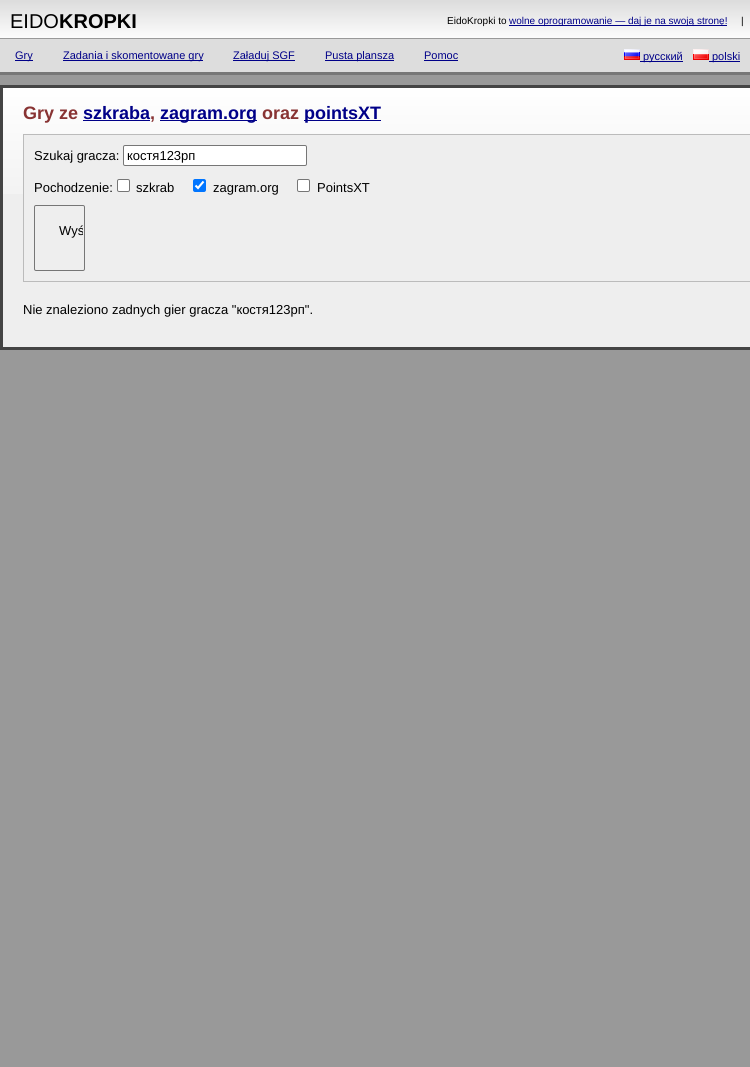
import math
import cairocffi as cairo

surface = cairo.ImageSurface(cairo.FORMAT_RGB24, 750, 1067)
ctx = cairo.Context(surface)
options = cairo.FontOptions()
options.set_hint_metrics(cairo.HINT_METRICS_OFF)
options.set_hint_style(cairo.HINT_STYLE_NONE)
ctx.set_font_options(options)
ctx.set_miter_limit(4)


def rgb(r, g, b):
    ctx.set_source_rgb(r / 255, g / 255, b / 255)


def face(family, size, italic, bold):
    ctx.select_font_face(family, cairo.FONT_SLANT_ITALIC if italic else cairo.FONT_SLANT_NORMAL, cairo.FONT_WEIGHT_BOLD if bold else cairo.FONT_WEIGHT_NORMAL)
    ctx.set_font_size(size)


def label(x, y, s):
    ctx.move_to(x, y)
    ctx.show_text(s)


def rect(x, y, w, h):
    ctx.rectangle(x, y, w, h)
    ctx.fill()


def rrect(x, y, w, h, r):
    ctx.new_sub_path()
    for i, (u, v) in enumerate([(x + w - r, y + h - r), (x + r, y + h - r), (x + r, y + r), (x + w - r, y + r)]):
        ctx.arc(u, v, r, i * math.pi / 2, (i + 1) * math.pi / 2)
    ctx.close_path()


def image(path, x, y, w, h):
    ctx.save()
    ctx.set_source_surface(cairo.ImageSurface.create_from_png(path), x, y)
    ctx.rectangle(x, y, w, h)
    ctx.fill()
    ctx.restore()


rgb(153, 153, 153)
ctx.paint()
image('image0.png', 0, 0, 750, 38)
face('Liberation Sans', 20, 0, 0)
rgb(0, 0, 0)
label(10, 28, 'EIDO')
face('Liberation Sans', 20, 0, 1)
label(59, 28, 'KROPKI')
face('Liberation Sans', 10, 0, 0)
label(447, 24, 'EidoKropki to')
rgb(0, 0, 136)
rect(509, 25, 218, 1)
label(509, 24, 'wolne oprogramowanie — daj je na swoją stronę!')
rgb(0, 0, 0)
label(741, 24, '|')
rgb(221, 221, 221)
rect(0, 39, 750, 33)
rgb(119, 119, 119)
rect(0, 72, 750, 3)
rgb(0, 0, 136)
rect(15, 60, 18, 1)
face('Liberation Sans', 11, 0, 0)
label(15, 59, 'Gry')
rect(63, 60, 140, 1)
label(63, 59, 'Zadania i skomentowane gry')
rect(233, 60, 62, 1)
label(233, 59, 'Załaduj SGF')
rect(325, 60, 69, 1)
label(325, 59, 'Pusta plansza')
label(424, 59, 'Pomoc')
rect(424, 60, 34, 1)
image('image1.png', 624, 49, 16, 11)
rect(640, 61, 43, 1)
label(643, 60, 'русский')
image('image2.png', 693, 49, 16, 11)
rect(709, 61, 31, 1)
label(712, 60, 'polski')
rgb(238, 238, 238)
rect(3, 194, 747, 153)
image('image3.png', 3, 88, 747, 106)
ctx.rectangle(1.5, 86.5, 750, 262)
rgb(68, 68, 68)
ctx.set_line_width(3)
ctx.stroke()
face('Liberation Sans', 18, 0, 1)
rgb(136, 51, 51)
label(23, 119, 'Gry ze')
rgb(0, 0, 136)
label(83, 119, 'szkraba')
rect(83, 120, 67, 1)
rgb(136, 51, 51)
label(150, 119, ',')
rgb(0, 0, 136)
rect(160, 120, 97, 1)
label(160, 119, 'zagram.org')
rgb(136, 51, 51)
label(262, 119, 'oraz')
rgb(0, 0, 136)
rect(304, 120, 77, 1)
label(304, 119, 'pointsXT')
rgb(238, 238, 238)
rect(24, 135, 726, 59)
ctx.rectangle(23.5, 134.5, 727, 147)
rgb(187, 187, 187)
ctx.set_line_width(1)
ctx.stroke()
face('Liberation Sans', 13, 0, 0)
rgb(0, 0, 0)
label(34, 160, 'Szukaj gracza:')
rgb(255, 255, 255)
rrect(123.5, 145.5, 183, 20, 1.5)
ctx.fill_preserve()
rgb(118, 118, 118)
ctx.stroke()
rgb(0, 0, 0)
label(127, 160, 'костя123рп')
label(34, 192, 'Pochodzenie:')
rgb(255, 255, 255)
rrect(117.5, 179.5, 12, 12, 1.5)
ctx.fill_preserve()
rgb(118, 118, 118)
ctx.stroke()
rgb(0, 0, 0)
label(136, 192, 'szkrab')
rgb(0, 117, 255)
rrect(193, 179, 13, 13, 2)
ctx.fill()
ctx.new_path()
ctx.move_to(195.5, 185.5)
ctx.line_to(198, 188)
ctx.line_to(203.5, 181.5)
rgb(255, 255, 255)
ctx.set_line_width(2.1)
ctx.stroke()
rgb(0, 0, 0)
label(213, 192, 'zagram.org')
rgb(255, 255, 255)
rrect(297.5, 179.5, 12, 12, 1.5)
ctx.fill_preserve()
rgb(118, 118, 118)
ctx.set_line_width(1)
ctx.stroke()
rgb(0, 0, 0)
label(317, 192, 'PointsXT')
rrect(34.5, 205.5, 50, 65, 1.5)
rgb(118, 118, 118)
ctx.stroke()
ctx.save()
ctx.rectangle(36, 207, 47, 62)
ctx.clip()
rgb(0, 0, 0)
label(59, 235, 'Wyś')
ctx.restore()
rgb(0, 0, 0)
label(23, 314, 'Nie znaleziono zadnych gier gracza "костя123рп".')
surface.write_to_png('render.png')
